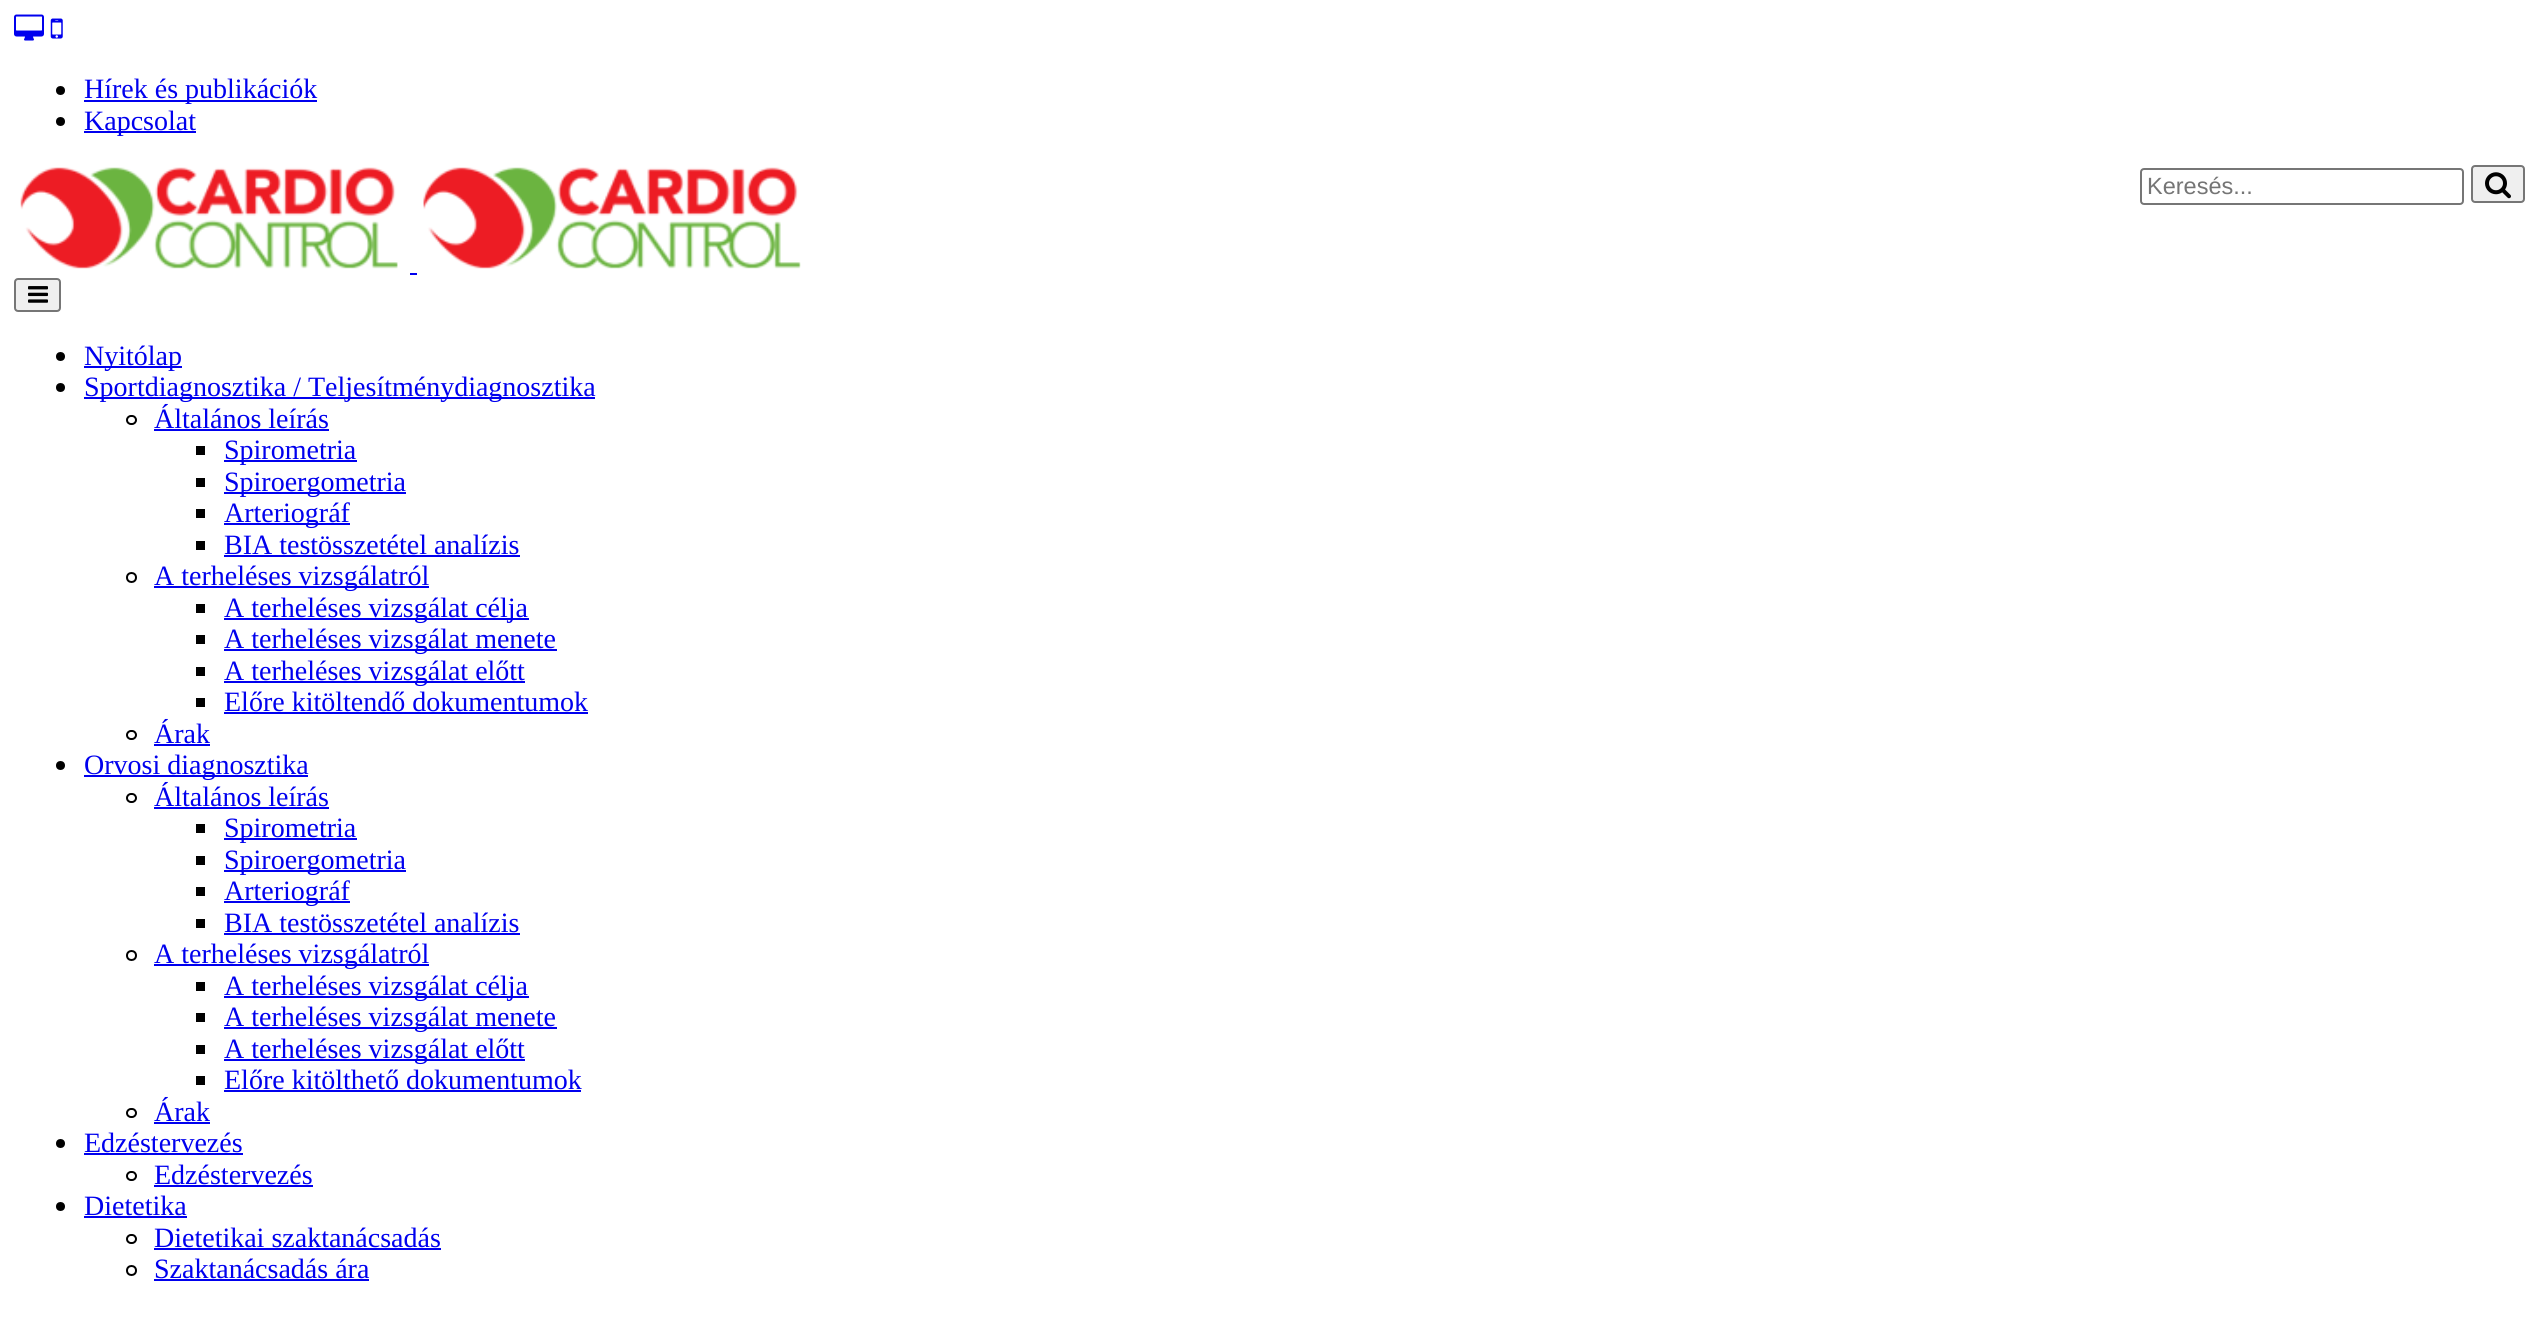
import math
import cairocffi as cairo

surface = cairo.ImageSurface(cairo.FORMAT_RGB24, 2539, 1320)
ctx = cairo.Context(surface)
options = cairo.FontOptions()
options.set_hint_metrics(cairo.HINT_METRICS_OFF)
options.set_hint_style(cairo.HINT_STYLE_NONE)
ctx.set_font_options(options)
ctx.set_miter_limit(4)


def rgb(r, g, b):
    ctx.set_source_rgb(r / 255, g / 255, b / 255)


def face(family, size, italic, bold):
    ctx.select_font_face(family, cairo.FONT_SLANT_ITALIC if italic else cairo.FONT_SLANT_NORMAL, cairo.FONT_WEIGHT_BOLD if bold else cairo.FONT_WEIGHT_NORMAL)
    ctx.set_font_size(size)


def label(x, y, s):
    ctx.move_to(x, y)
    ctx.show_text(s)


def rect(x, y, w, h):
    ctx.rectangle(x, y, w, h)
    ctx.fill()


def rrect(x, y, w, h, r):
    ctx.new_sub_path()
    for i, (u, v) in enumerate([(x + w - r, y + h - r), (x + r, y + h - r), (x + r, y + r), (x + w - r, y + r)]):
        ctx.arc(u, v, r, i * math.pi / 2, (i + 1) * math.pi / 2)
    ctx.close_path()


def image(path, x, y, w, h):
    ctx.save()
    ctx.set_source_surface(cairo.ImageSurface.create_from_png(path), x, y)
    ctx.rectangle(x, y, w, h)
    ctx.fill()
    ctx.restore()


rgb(255, 255, 255)
ctx.paint()
image('image0.png', 14, 14, 30, 27)
image('image1.png', 50, 18, 13, 21)
rgb(0, 0, 0)
ctx.arc(60.5, 90.5, 4.5, 0, 2 * math.pi)
ctx.fill()
rgb(0, 0, 238)
rect(84, 100, 233, 2)
face('Liberation Serif', 28, 0, 0)
label(84, 98, 'Hírek és publikációk')
rgb(0, 0, 0)
ctx.new_path()
ctx.arc(60.5, 121.5, 4.5, 0, 2 * math.pi)
ctx.fill()
rgb(0, 0, 238)
rect(84, 131, 112, 2)
label(84, 130, 'Kapcsolat')
rrect(2141, 169, 322, 35, 3)
rgb(118, 118, 118)
ctx.stroke()
face('Liberation Sans', 23.5, 0, 0)
rgb(117, 117, 117)
label(2147, 194, 'Keresés...')
rgb(239, 239, 239)
rrect(2472, 166, 52, 36, 3)
ctx.fill_preserve()
rgb(118, 118, 118)
ctx.stroke()
image('image2.png', 2485, 172, 26, 27)
image('image3.png', 20, 167, 378, 102)
image('image4.png', 423, 167, 378, 102)
rgb(0, 0, 238)
rect(410, 273, 7, 2)
rgb(239, 239, 239)
rrect(15, 279, 45, 32, 3)
ctx.fill_preserve()
rgb(118, 118, 118)
ctx.stroke()
image('image5.png', 28, 286, 20, 17)
rgb(0, 0, 0)
ctx.arc(60.5, 356.5, 4.5, 0, 2 * math.pi)
ctx.fill()
rgb(0, 0, 238)
rect(84, 366, 98, 2)
face('Liberation Serif', 28, 0, 0)
label(84, 365, 'Nyitólap')
rgb(0, 0, 0)
ctx.new_path()
ctx.arc(60.5, 387.5, 4.5, 0, 2 * math.pi)
ctx.fill()
rgb(0, 0, 238)
rect(84, 397, 511, 2)
label(84, 396, 'Sportdiagnosztika / Teljesítménydiagnosztika')
rrect(127, 416, 9, 8, 4)
rgb(0, 0, 0)
ctx.stroke()
rgb(0, 0, 238)
label(154, 428, 'Általános leírás')
rect(154, 429, 175, 2)
rgb(0, 0, 0)
rect(196, 446, 9, 9)
rgb(0, 0, 238)
rect(224, 460, 133, 2)
label(224, 459, 'Spirometria')
rgb(0, 0, 0)
rect(196, 478, 9, 9)
rgb(0, 0, 238)
rect(224, 492, 182, 2)
label(224, 491, 'Spiroergometria')
rgb(0, 0, 0)
rect(196, 509, 9, 9)
rgb(0, 0, 238)
rect(224, 523, 126, 2)
label(224, 522, 'Arteriográf')
rgb(0, 0, 0)
rect(196, 541, 9, 9)
rgb(0, 0, 238)
label(224, 554, 'BIA testösszetétel analízis')
rect(224, 555, 296, 2)
ctx.new_path()
ctx.arc(131.5, 577.5, 4.5, 0, 2 * math.pi)
rgb(0, 0, 0)
ctx.stroke()
rgb(0, 0, 238)
rect(154, 586, 275, 2)
label(154, 585, 'A terheléses vizsgálatról')
rgb(0, 0, 0)
rect(196, 604, 9, 9)
rgb(0, 0, 238)
rect(224, 618, 305, 2)
label(224, 617, 'A terheléses vizsgálat célja')
rgb(0, 0, 0)
rect(196, 635, 9, 9)
rgb(0, 0, 238)
rect(224, 649, 333, 2)
label(224, 648, 'A terheléses vizsgálat menete')
rgb(0, 0, 0)
rect(196, 667, 9, 9)
rgb(0, 0, 238)
rect(224, 681, 301, 2)
label(224, 680, 'A terheléses vizsgálat előtt')
rgb(0, 0, 0)
rect(196, 698, 9, 9)
rgb(0, 0, 238)
label(224, 711, 'Előre kitöltendő dokumentumok')
rect(224, 712, 364, 2)
rrect(127, 731, 9, 8, 4)
rgb(0, 0, 0)
ctx.stroke()
rgb(0, 0, 238)
label(154, 743, 'Árak')
rect(154, 744, 56, 2)
rgb(0, 0, 0)
ctx.new_path()
ctx.arc(60.5, 765.5, 4.5, 0, 2 * math.pi)
ctx.fill()
rgb(0, 0, 238)
rect(84, 775, 224, 2)
label(84, 774, 'Orvosi diagnosztika')
rrect(127, 794, 9, 8, 4)
rgb(0, 0, 0)
ctx.stroke()
rgb(0, 0, 238)
label(154, 806, 'Általános leírás')
rect(154, 807, 175, 2)
rgb(0, 0, 0)
rect(196, 824, 9, 9)
rgb(0, 0, 238)
rect(224, 838, 133, 2)
label(224, 837, 'Spirometria')
rgb(0, 0, 0)
rect(196, 856, 9, 9)
rgb(0, 0, 238)
rect(224, 870, 182, 2)
label(224, 869, 'Spiroergometria')
rgb(0, 0, 0)
rect(196, 887, 9, 9)
rgb(0, 0, 238)
rect(224, 901, 126, 2)
label(224, 900, 'Arteriográf')
rgb(0, 0, 0)
rect(196, 919, 9, 9)
rgb(0, 0, 238)
label(224, 932, 'BIA testösszetétel analízis')
rect(224, 933, 296, 2)
ctx.new_path()
ctx.arc(131.5, 955.5, 4.5, 0, 2 * math.pi)
rgb(0, 0, 0)
ctx.stroke()
rgb(0, 0, 238)
rect(154, 964, 275, 2)
label(154, 963, 'A terheléses vizsgálatról')
rgb(0, 0, 0)
rect(196, 982, 9, 9)
rgb(0, 0, 238)
rect(224, 996, 305, 2)
label(224, 995, 'A terheléses vizsgálat célja')
rgb(0, 0, 0)
rect(196, 1013, 9, 9)
rgb(0, 0, 238)
rect(224, 1027, 333, 2)
label(224, 1026, 'A terheléses vizsgálat menete')
rgb(0, 0, 0)
rect(196, 1045, 9, 9)
rgb(0, 0, 238)
rect(224, 1059, 301, 2)
label(224, 1058, 'A terheléses vizsgálat előtt')
rgb(0, 0, 0)
rect(196, 1076, 9, 9)
rgb(0, 0, 238)
label(224, 1089, 'Előre kitölthető dokumentumok')
rect(224, 1090, 357, 2)
rrect(127, 1109, 9, 8, 4)
rgb(0, 0, 0)
ctx.stroke()
rgb(0, 0, 238)
label(154, 1121, 'Árak')
rect(154, 1122, 56, 2)
rgb(0, 0, 0)
ctx.new_path()
ctx.arc(60.5, 1143.5, 4.5, 0, 2 * math.pi)
ctx.fill()
rgb(0, 0, 238)
label(84, 1152, 'Edzéstervezés')
rect(84, 1153, 159, 2)
rrect(127, 1172, 9, 8, 4)
rgb(0, 0, 0)
ctx.stroke()
rgb(0, 0, 238)
label(154, 1184, 'Edzéstervezés')
rect(154, 1185, 159, 2)
rgb(0, 0, 0)
ctx.new_path()
ctx.arc(60.5, 1206.5, 4.5, 0, 2 * math.pi)
ctx.fill()
rgb(0, 0, 238)
label(84, 1215, 'Dietetika')
rect(84, 1216, 103, 2)
rrect(127, 1235, 9, 8, 4)
rgb(0, 0, 0)
ctx.stroke()
rgb(0, 0, 238)
label(154, 1247, 'Dietetikai szaktanácsadás')
rect(154, 1248, 287, 2)
ctx.new_path()
ctx.arc(131.5, 1270.5, 4.5, 0, 2 * math.pi)
rgb(0, 0, 0)
ctx.stroke()
rgb(0, 0, 238)
label(154, 1278, 'Szaktanácsadás ára')
rect(154, 1279, 215, 2)
surface.write_to_png('render.png')
